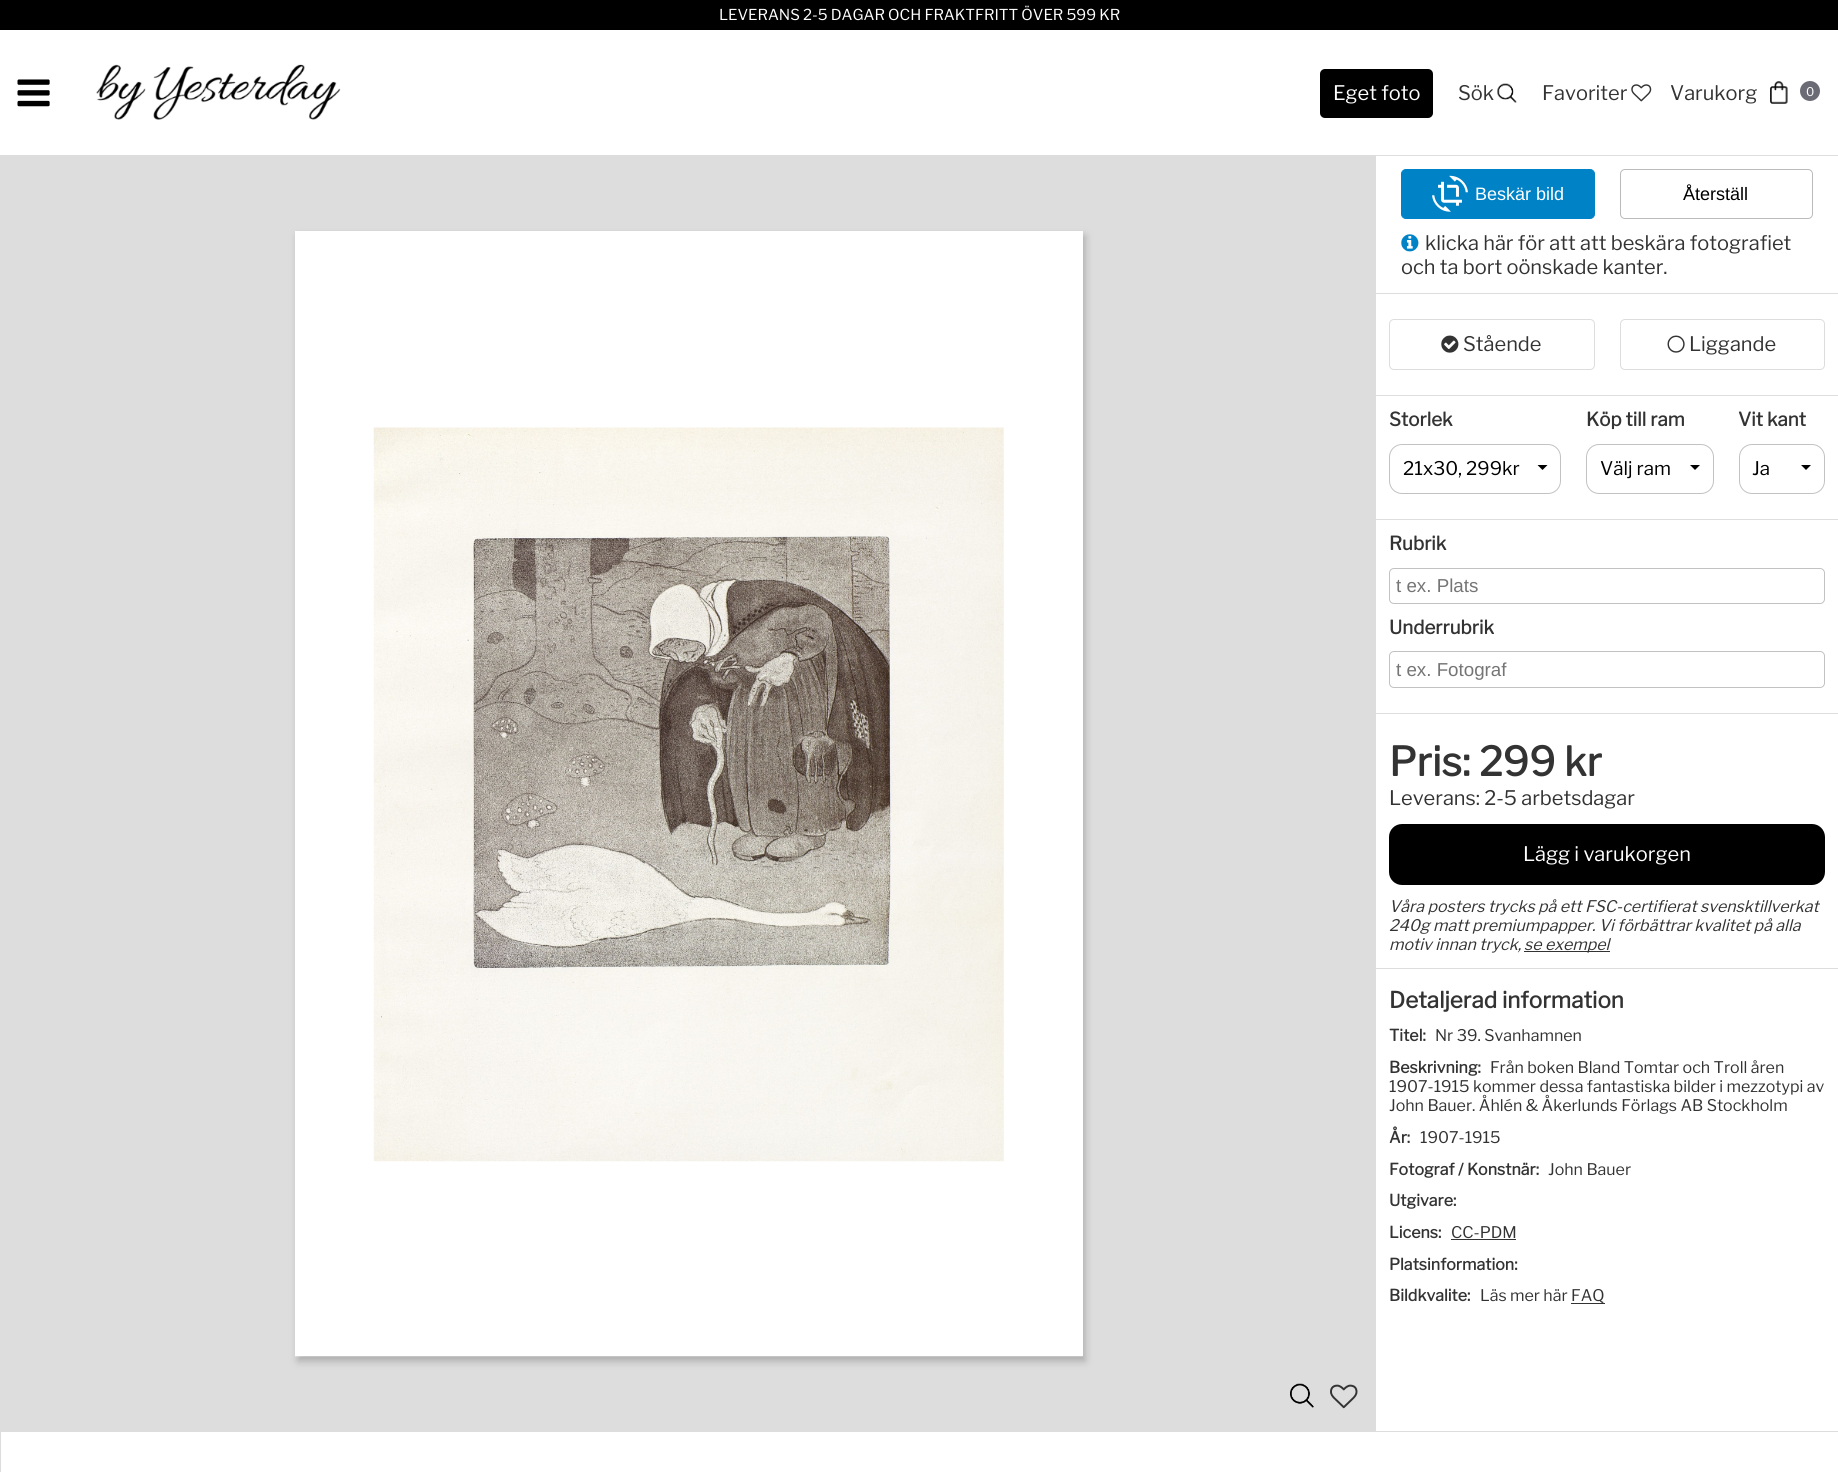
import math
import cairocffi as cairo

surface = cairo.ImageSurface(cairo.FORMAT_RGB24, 1838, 1472)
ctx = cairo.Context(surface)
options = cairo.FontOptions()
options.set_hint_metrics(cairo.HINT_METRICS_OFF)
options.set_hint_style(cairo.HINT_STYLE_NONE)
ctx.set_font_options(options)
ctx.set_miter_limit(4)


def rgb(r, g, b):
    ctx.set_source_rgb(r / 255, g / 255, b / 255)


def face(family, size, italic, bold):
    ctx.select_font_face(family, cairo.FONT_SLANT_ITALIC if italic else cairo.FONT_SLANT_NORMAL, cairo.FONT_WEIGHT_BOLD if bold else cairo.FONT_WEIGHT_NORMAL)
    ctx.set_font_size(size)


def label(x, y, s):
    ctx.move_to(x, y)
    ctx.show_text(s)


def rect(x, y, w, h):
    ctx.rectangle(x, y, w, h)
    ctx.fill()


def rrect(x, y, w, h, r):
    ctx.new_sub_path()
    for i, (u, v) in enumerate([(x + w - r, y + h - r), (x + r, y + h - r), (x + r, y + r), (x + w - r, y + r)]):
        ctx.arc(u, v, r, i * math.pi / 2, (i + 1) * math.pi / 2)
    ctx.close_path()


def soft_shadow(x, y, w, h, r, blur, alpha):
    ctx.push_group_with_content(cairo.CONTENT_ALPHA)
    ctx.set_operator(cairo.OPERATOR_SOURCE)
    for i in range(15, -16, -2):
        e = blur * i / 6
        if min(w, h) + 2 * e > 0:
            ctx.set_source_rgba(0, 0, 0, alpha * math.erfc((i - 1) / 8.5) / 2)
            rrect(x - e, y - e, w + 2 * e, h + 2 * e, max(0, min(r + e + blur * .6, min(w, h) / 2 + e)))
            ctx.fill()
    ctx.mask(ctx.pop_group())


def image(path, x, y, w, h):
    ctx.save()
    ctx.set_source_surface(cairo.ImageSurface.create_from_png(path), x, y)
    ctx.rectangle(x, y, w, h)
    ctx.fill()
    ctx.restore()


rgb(255, 255, 255)
ctx.paint()
rgb(221, 221, 221)
rect(0, 155, 1838, 1)
rgb(0, 0, 0)
rect(0, 0, 1838, 30)
face('Libre Franklin Thin', 15, 0, 0)
rgb(255, 255, 255)
label(719, 20, 'LEVERANS 2-5 DAGAR OCH FRAKTFRITT ÖVER 599 KR')
image('image0.png', 17, 79, 33, 28)
image('image1.png', 96, 64, 245, 56)
rgb(0, 0, 0)
rrect(1320, 69, 113, 49, 5)
ctx.fill()
face('Libre Franklin Thin', 20, 0, 0)
rgb(255, 255, 255)
label(1333, 100, 'Eget foto')
rgb(51, 51, 51)
label(1458, 100, 'Sök')
image('image2.png', 1497, 83, 20, 20)
label(1542, 100, 'Favoriter')
image('image3.png', 1631, 84, 21, 18)
label(1670, 100, 'Varukorg')
image('image4.png', 1770, 81, 18, 23)
rgb(107, 107, 117)
ctx.arc(1810, 91, 10, 0, 2 * math.pi)
ctx.fill()
face('Libre Franklin Thin', 12, 0, 0)
rgb(255, 255, 255)
label(1806, 96, '0')
rgb(221, 221, 221)
rect(0, 156, 1, 1316)
rect(1, 156, 1375, 1275)
rgb(171, 171, 171)
soft_shadow(298, 236, 787, 1125, 0, 4, 1)
rgb(255, 255, 255)
rect(295, 231, 788, 1125)
image('image5.png', 373, 427, 631, 735)
image('image6.png', 295, 1356, 788, 1)
image('image7.png', 1290, 1383, 24, 25)
image('image8.png', 1330, 1384, 28, 25)
rgb(221, 221, 221)
rect(1376, 293, 462, 1)
rgb(0, 130, 199)
rrect(1401.5, 169.5, 193, 49, 4.5)
ctx.fill_preserve()
ctx.set_line_width(1)
ctx.stroke()
image('image9.png', 1432, 175, 36, 37)
face('Liberation Sans', 18, 0, 0)
rgb(255, 255, 255)
label(1475, 200, 'Beskär bild')
rrect(1620.5, 169.5, 192, 49, 4.5)
rgb(187, 187, 187)
ctx.stroke()
rgb(0, 0, 0)
label(1683, 200, 'Återställ')
image('image10.png', 1401, 234, 18, 18)
face('Libre Franklin Thin', 20, 0, 0)
rgb(51, 51, 51)
label(1425, 250, 'klicka här för att att beskära fotografiet')
label(1401, 274, 'och ta bort oönskade kanter.')
rgb(222, 222, 222)
rect(1376, 395, 462, 1)
rrect(1389.5, 319.5, 205, 50, 4.5)
rgb(221, 221, 221)
ctx.stroke()
image('image11.png', 1441, 335, 18, 18)
rgb(51, 51, 51)
label(1463, 351, 'Stående')
rrect(1620.5, 319.5, 204, 50, 4.5)
rgb(221, 221, 221)
ctx.stroke()
image('image12.png', 1667, 335, 18, 18)
rgb(51, 51, 51)
label(1689, 351, 'Liggande')
rgb(222, 222, 222)
rect(1376, 519, 462, 1)
face('Libre Franklin', 18.75, 0, 1)
rgb(51, 51, 51)
label(1389, 426, 'Storlek')
rrect(1389.5, 444.5, 171, 49, 12.5)
rgb(194, 194, 194)
ctx.stroke()
face('Libre Franklin Thin', 18.75, 0, 0)
rgb(0, 0, 0)
label(1403, 475, '21x30, 299kr')
ctx.new_path()
ctx.move_to(1537.5, 465)
ctx.line_to(1547.5, 465)
ctx.line_to(1542.5, 470)
ctx.close_path()
ctx.fill()
face('Libre Franklin', 18.75, 0, 1)
rgb(51, 51, 51)
label(1586, 426, 'Köp till ram')
rrect(1586.5, 444.5, 127, 49, 12.5)
rgb(194, 194, 194)
ctx.stroke()
face('Libre Franklin Thin', 18.75, 0, 0)
rgb(0, 0, 0)
label(1600, 475, 'Välj ram')
ctx.new_path()
ctx.move_to(1690, 465)
ctx.line_to(1700, 465)
ctx.line_to(1695, 470)
ctx.close_path()
ctx.fill()
face('Libre Franklin', 18.75, 0, 1)
rgb(51, 51, 51)
label(1738, 426, 'Vit kant')
rrect(1739.5, 444.5, 85, 49, 12.5)
rgb(194, 194, 194)
ctx.stroke()
face('Libre Franklin Thin', 18.75, 0, 0)
rgb(0, 0, 0)
label(1752, 475, 'Ja')
ctx.new_path()
ctx.move_to(1801, 465)
ctx.line_to(1811, 465)
ctx.line_to(1806, 470)
ctx.close_path()
ctx.fill()
rgb(222, 222, 222)
rect(1376, 713, 462, 1)
face('Libre Franklin', 18.75, 0, 1)
rgb(51, 51, 51)
label(1389, 550, 'Rubrik')
rrect(1389.5, 568.5, 435, 35, 4.5)
rgb(194, 194, 194)
ctx.stroke()
face('Liberation Sans', 18.75, 0, 0)
rgb(117, 117, 117)
label(1396, 592, 't ex. Plats')
face('Libre Franklin', 18.75, 0, 1)
rgb(51, 51, 51)
label(1389, 634, 'Underrubrik')
rrect(1389.5, 651.5, 435, 36, 4.5)
rgb(194, 194, 194)
ctx.stroke()
face('Liberation Sans', 18.75, 0, 0)
rgb(117, 117, 117)
label(1396, 676, 't ex. Fotograf')
face('Libre Franklin', 40, 0, 1)
rgb(51, 51, 51)
label(1389, 776, 'Pris: 299 kr')
face('Libre Franklin Thin', 20, 0, 0)
label(1389, 805, 'Leverans: 2-5 arbetsdagar')
rgb(0, 0, 0)
rrect(1389, 824, 436, 61, 13)
ctx.fill()
rgb(255, 255, 255)
label(1523, 861, 'Lägg i varukorgen')
face('Libre Franklin Thin', 16, 1, 0)
rgb(51, 51, 51)
label(1389, 912, 'Våra posters trycks på ett FSC-certifierat svensktillverkat')
label(1389, 931, '240g matt premiumpapper. Vi förbättrar kvalitet på alla')
label(1389, 950, 'motiv innan tryck,')
rect(1524, 951, 86, 1)
label(1524, 950, 'se exempel')
rgb(221, 221, 221)
rect(1376, 968, 462, 1)
face('Libre Franklin', 22.4, 0, 1)
rgb(51, 51, 51)
label(1389, 1008, 'Detaljerad information')
face('Libre Franklin', 16, 0, 1)
label(1389, 1041, 'Titel:')
face('Libre Franklin Thin', 16, 0, 0)
label(1435, 1041, 'Nr 39. Svanhamnen')
face('Libre Franklin', 16, 0, 1)
label(1389, 1073, 'Beskrivning:')
face('Libre Franklin Thin', 16, 0, 0)
label(1490, 1073, 'Från boken Bland Tomtar och Troll åren')
label(1389, 1092, '1907-1915 kommer dessa fantastiska bilder i mezzotypi av')
label(1389, 1111, 'John Bauer. Åhlén & Åkerlunds Förlags AB Stockholm')
face('Libre Franklin', 16, 0, 1)
label(1389, 1143, 'År:')
face('Libre Franklin Thin', 16, 0, 0)
label(1420, 1143, '1907-1915')
face('Libre Franklin', 16, 0, 1)
label(1389, 1175, 'Fotograf / Konstnär:')
face('Libre Franklin Thin', 16, 0, 0)
label(1548, 1175, 'John Bauer')
face('Libre Franklin', 16, 0, 1)
label(1389, 1206, 'Utgivare:')
label(1389, 1238, 'Licens:')
face('Libre Franklin Thin', 16, 0, 0)
label(1451, 1238, 'CC-PDM')
rect(1451, 1239, 65, 1)
face('Libre Franklin', 16, 0, 1)
label(1389, 1270, 'Platsinformation:')
label(1389, 1301, 'Bildkvalite:')
face('Libre Franklin Thin', 16, 0, 0)
label(1480, 1301, 'Läs mer här FAQ')
rect(1571, 1303, 34, 1)
rgb(221, 221, 221)
rect(1, 1431, 1837, 1)
surface.write_to_png('render.png')
